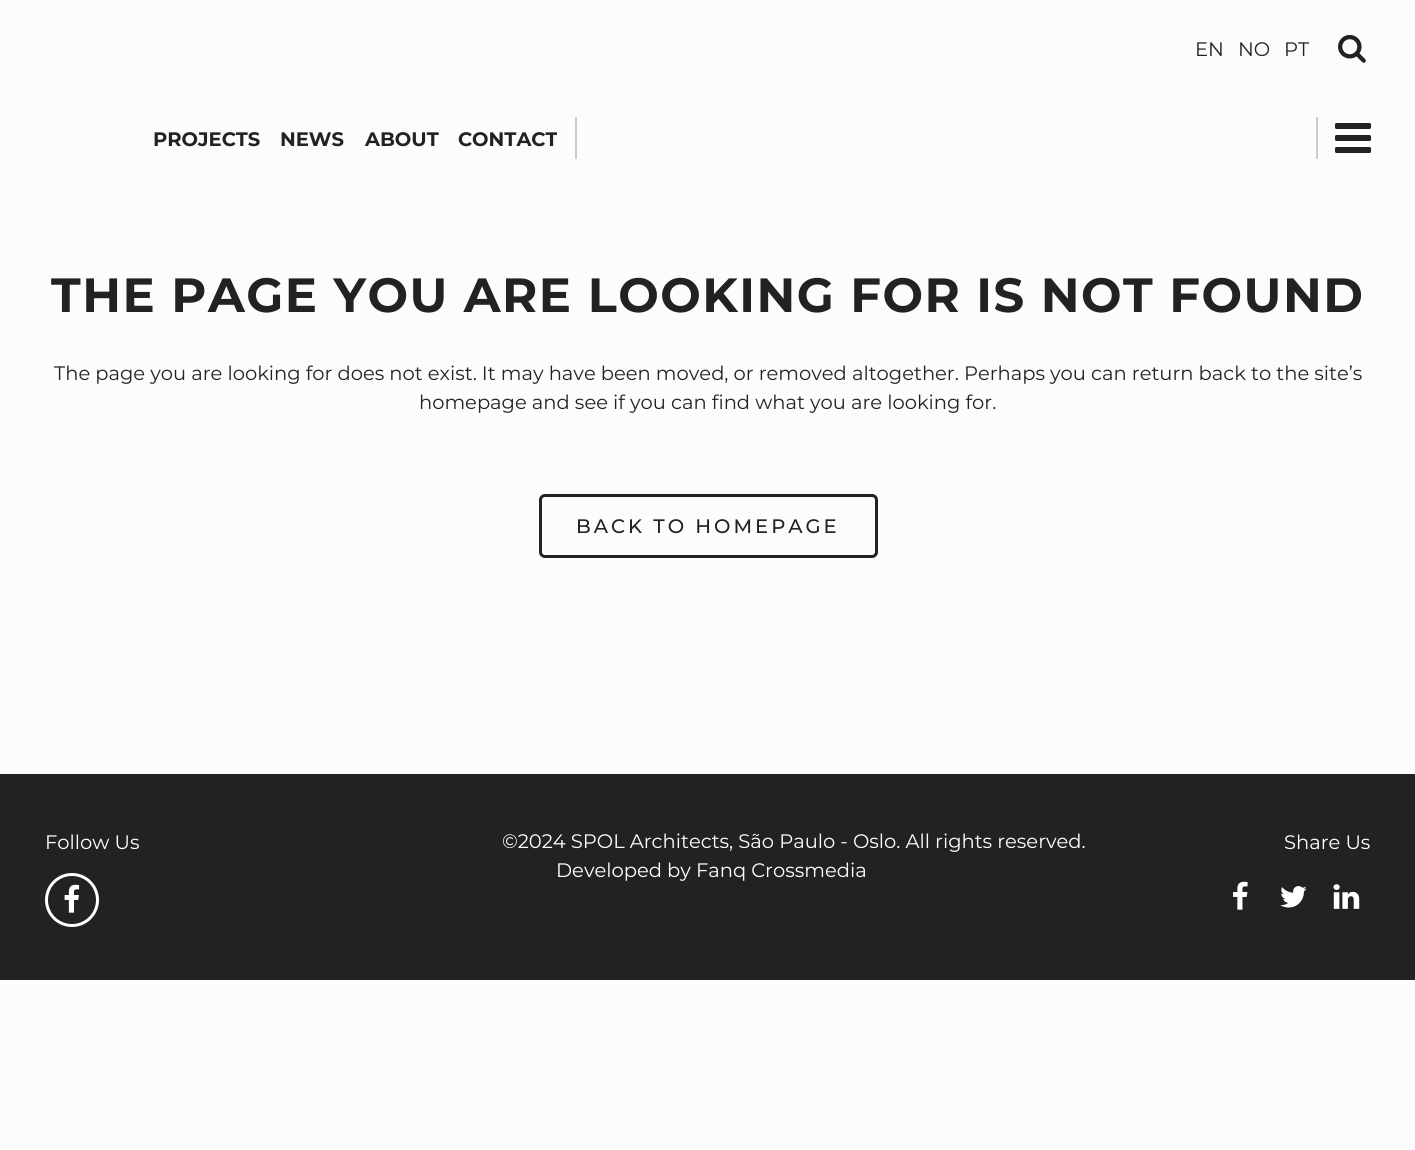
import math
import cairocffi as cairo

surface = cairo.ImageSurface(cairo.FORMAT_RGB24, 1415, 1150)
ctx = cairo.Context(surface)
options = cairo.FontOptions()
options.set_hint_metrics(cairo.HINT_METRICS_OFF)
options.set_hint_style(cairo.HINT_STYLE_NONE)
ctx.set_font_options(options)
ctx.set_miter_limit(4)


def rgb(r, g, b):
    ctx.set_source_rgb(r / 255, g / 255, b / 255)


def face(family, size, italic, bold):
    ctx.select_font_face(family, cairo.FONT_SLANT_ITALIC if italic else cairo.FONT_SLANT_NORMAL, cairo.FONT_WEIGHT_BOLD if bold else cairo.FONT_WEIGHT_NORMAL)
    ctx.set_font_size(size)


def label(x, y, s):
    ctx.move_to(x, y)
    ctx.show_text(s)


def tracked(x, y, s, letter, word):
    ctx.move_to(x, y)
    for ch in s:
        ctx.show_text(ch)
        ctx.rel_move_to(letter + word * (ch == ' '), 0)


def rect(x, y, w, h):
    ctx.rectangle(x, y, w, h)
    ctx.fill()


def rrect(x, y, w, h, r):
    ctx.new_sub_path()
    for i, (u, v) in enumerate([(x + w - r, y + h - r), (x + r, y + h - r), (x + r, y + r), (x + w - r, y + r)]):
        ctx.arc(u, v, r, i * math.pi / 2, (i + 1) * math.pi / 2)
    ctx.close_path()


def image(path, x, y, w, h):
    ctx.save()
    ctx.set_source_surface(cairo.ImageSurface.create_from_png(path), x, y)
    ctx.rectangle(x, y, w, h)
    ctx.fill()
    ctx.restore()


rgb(252, 252, 252)
ctx.paint()
face('Montserrat', 19.5, 0, 0)
rgb(34, 34, 34)
label(1195, 56, 'EN')
label(1238, 56, 'NO')
label(1284, 56, 'PT')
image('image0.png', 1338, 34, 28, 29)
rgb(204, 204, 204)
rect(575, 117, 2, 42)
face('Montserrat', 19.5, 0, 1)
rgb(34, 34, 34)
label(153, 146, 'PROJECTS')
label(280, 146, 'NEWS')
label(365, 146, 'ABOUT')
label(458, 146, 'CONTACT')
rgb(204, 204, 204)
rect(1316, 117, 2, 42)
image('image1.png', 1335, 123, 36, 30)
face('Montserrat', 48, 0, 1)
rgb(34, 34, 34)
tracked(51, 312, 'THE PAGE YOU ARE LOOKING FOR IS NOT FOUND', 1.5, 0)
face('Montserrat', 19.5, 0, 0)
label(54, 380, 'The page you are looking for does not exist. It may have been moved, or removed altogether. Perhaps you can return back to the site’s')
label(419, 409, 'homepage and see if you can find what you are looking for.')
rrect(540.5, 495.5, 336, 61, 4.5)
ctx.set_line_width(3)
ctx.stroke()
face('Montserrat Medium', 19.5, 0, 0)
tracked(576, 533, 'BACK TO HOMEPAGE', 3, 0)
rect(0, 774, 1415, 206)
face('Montserrat', 19.5, 0, 0)
rgb(255, 255, 255)
label(45, 849, 'Follow Us')
ctx.new_path()
ctx.arc(72, 900, 25.5, 0, 2 * math.pi)
ctx.stroke()
image('image2.png', 64, 884, 16, 29)
label(502, 848, '©2024 SPOL Architects, São Paulo - Oslo. All rights reserved.')
label(556, 877, 'Developed by Fanq Crossmedia')
label(1284, 849, 'Share Us')
image('image3.png', 1233, 881, 15, 29)
image('image4.png', 1280, 886, 27, 22)
image('image5.png', 1333, 884, 27, 25)
surface.write_to_png('render.png')
